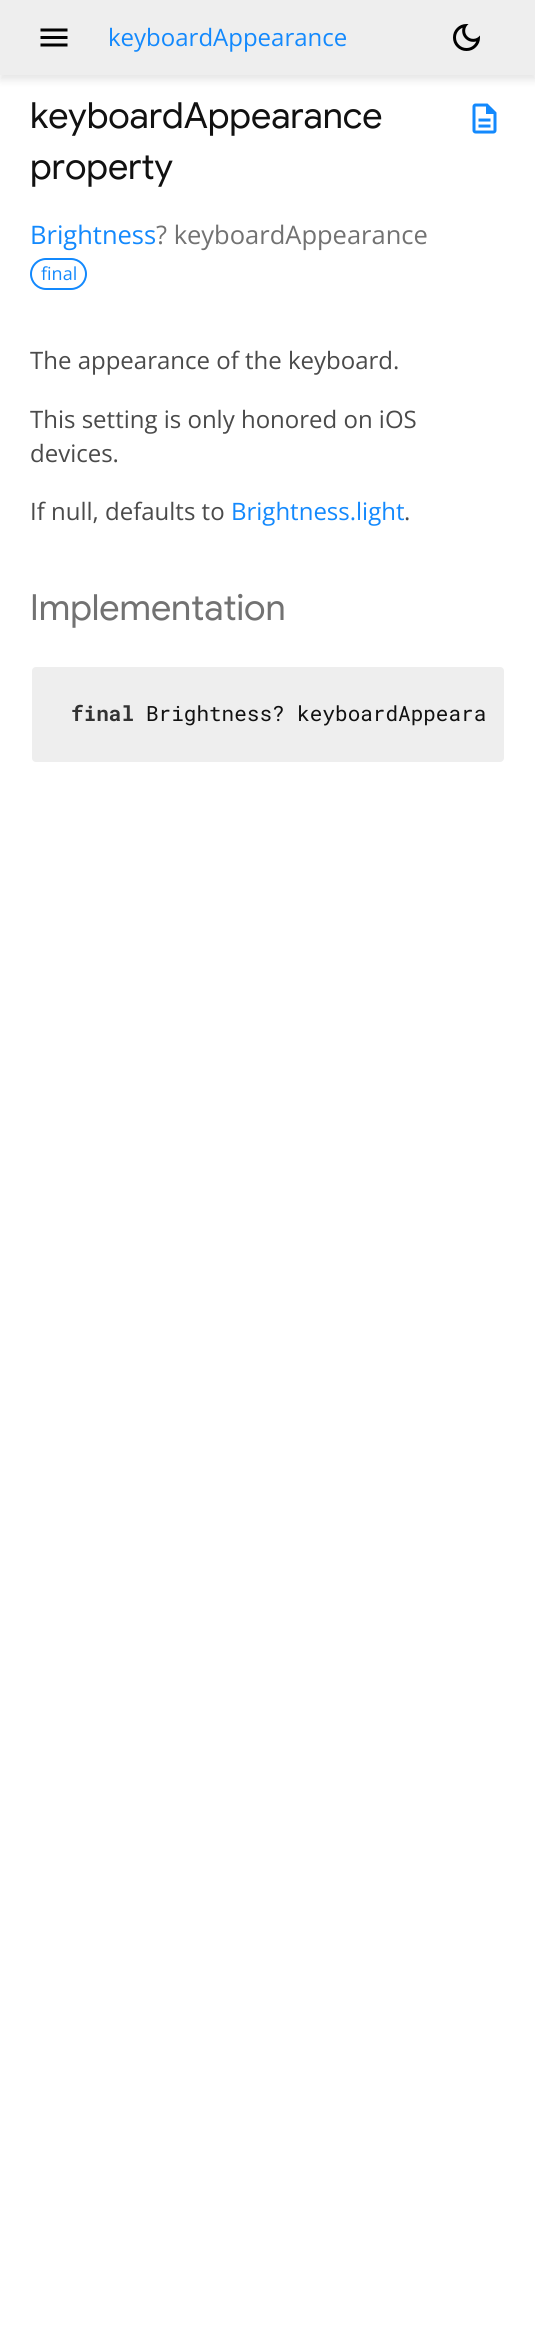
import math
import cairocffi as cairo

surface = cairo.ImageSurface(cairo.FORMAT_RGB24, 535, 2348)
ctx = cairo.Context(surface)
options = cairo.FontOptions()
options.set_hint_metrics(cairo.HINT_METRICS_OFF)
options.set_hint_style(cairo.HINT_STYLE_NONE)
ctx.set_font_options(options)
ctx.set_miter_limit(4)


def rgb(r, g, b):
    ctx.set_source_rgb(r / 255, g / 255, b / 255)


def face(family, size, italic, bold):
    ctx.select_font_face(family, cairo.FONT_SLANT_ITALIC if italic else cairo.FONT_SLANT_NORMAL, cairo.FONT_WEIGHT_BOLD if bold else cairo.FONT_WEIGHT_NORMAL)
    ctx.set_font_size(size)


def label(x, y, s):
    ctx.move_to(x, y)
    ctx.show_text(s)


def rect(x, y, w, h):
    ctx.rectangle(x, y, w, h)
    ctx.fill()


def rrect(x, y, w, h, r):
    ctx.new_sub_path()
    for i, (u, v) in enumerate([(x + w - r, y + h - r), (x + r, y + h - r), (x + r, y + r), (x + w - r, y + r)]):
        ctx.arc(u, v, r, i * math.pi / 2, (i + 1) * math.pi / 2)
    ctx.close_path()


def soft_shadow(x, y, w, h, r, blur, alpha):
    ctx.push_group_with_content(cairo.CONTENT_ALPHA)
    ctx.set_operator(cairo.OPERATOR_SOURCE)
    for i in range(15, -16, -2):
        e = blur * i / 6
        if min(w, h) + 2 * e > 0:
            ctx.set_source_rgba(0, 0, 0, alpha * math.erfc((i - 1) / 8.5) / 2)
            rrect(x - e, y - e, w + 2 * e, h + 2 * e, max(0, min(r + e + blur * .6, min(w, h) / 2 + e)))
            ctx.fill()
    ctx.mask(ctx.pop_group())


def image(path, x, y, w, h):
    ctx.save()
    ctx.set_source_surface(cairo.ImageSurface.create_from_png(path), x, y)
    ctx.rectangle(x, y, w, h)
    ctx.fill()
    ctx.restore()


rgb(255, 255, 255)
ctx.paint()
rgb(0, 0, 0)
soft_shadow(0, 5, 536, 75, 0, 4, 0.1)
rgb(238, 238, 238)
rect(0, 0, 535, 75)
image('image0.png', 40, 28, 28, 19)
face('Open Sans', 24, 0, 0)
rgb(19, 137, 253)
label(108, 46, 'keyboardAppearance')
image('image1.png', 453, 24, 27, 27)
face('Google Sans', 36, 0, 0)
rgb(17, 17, 17)
label(30, 128, 'keyboardAppearance')
label(30, 179, 'property')
image('image2.png', 472, 103, 25, 31)
face('Open Sans', 25.5, 0, 0)
rgb(19, 137, 253)
label(30, 244, 'Brightness')
rgb(114, 114, 114)
label(156, 244, '? keyboardAppearance')
rrect(31, 259, 55, 30, 15)
rgb(19, 137, 253)
ctx.stroke()
face('Open Sans', 18, 0, 0)
label(41, 280, 'final')
face('Open Sans', 24, 0, 0)
rgb(74, 74, 74)
label(30, 369, 'The appearance of the keyboard.')
label(30, 428, 'This setting is only honored on iOS')
label(30, 462, 'devices.')
label(30, 520, 'If null, defaults to')
rgb(19, 137, 253)
label(231, 520, 'Brightness.light')
rgb(74, 74, 74)
label(404, 520, '.')
face('Google Sans', 36, 0, 0)
rgb(114, 114, 114)
label(30, 620, 'Implementation')
rgb(238, 238, 238)
rrect(31, 666, 474, 97, 5)
ctx.fill_preserve()
rgb(255, 255, 255)
ctx.stroke()
face('Roboto Mono', 21, 0, 1)
rgb(51, 51, 51)
label(71, 721, 'final')
face('Roboto Mono', 21, 0, 0)
rgb(17, 17, 17)
label(146, 721, 'Brightness? keyboardAppeara')
surface.write_to_png('render.png')
